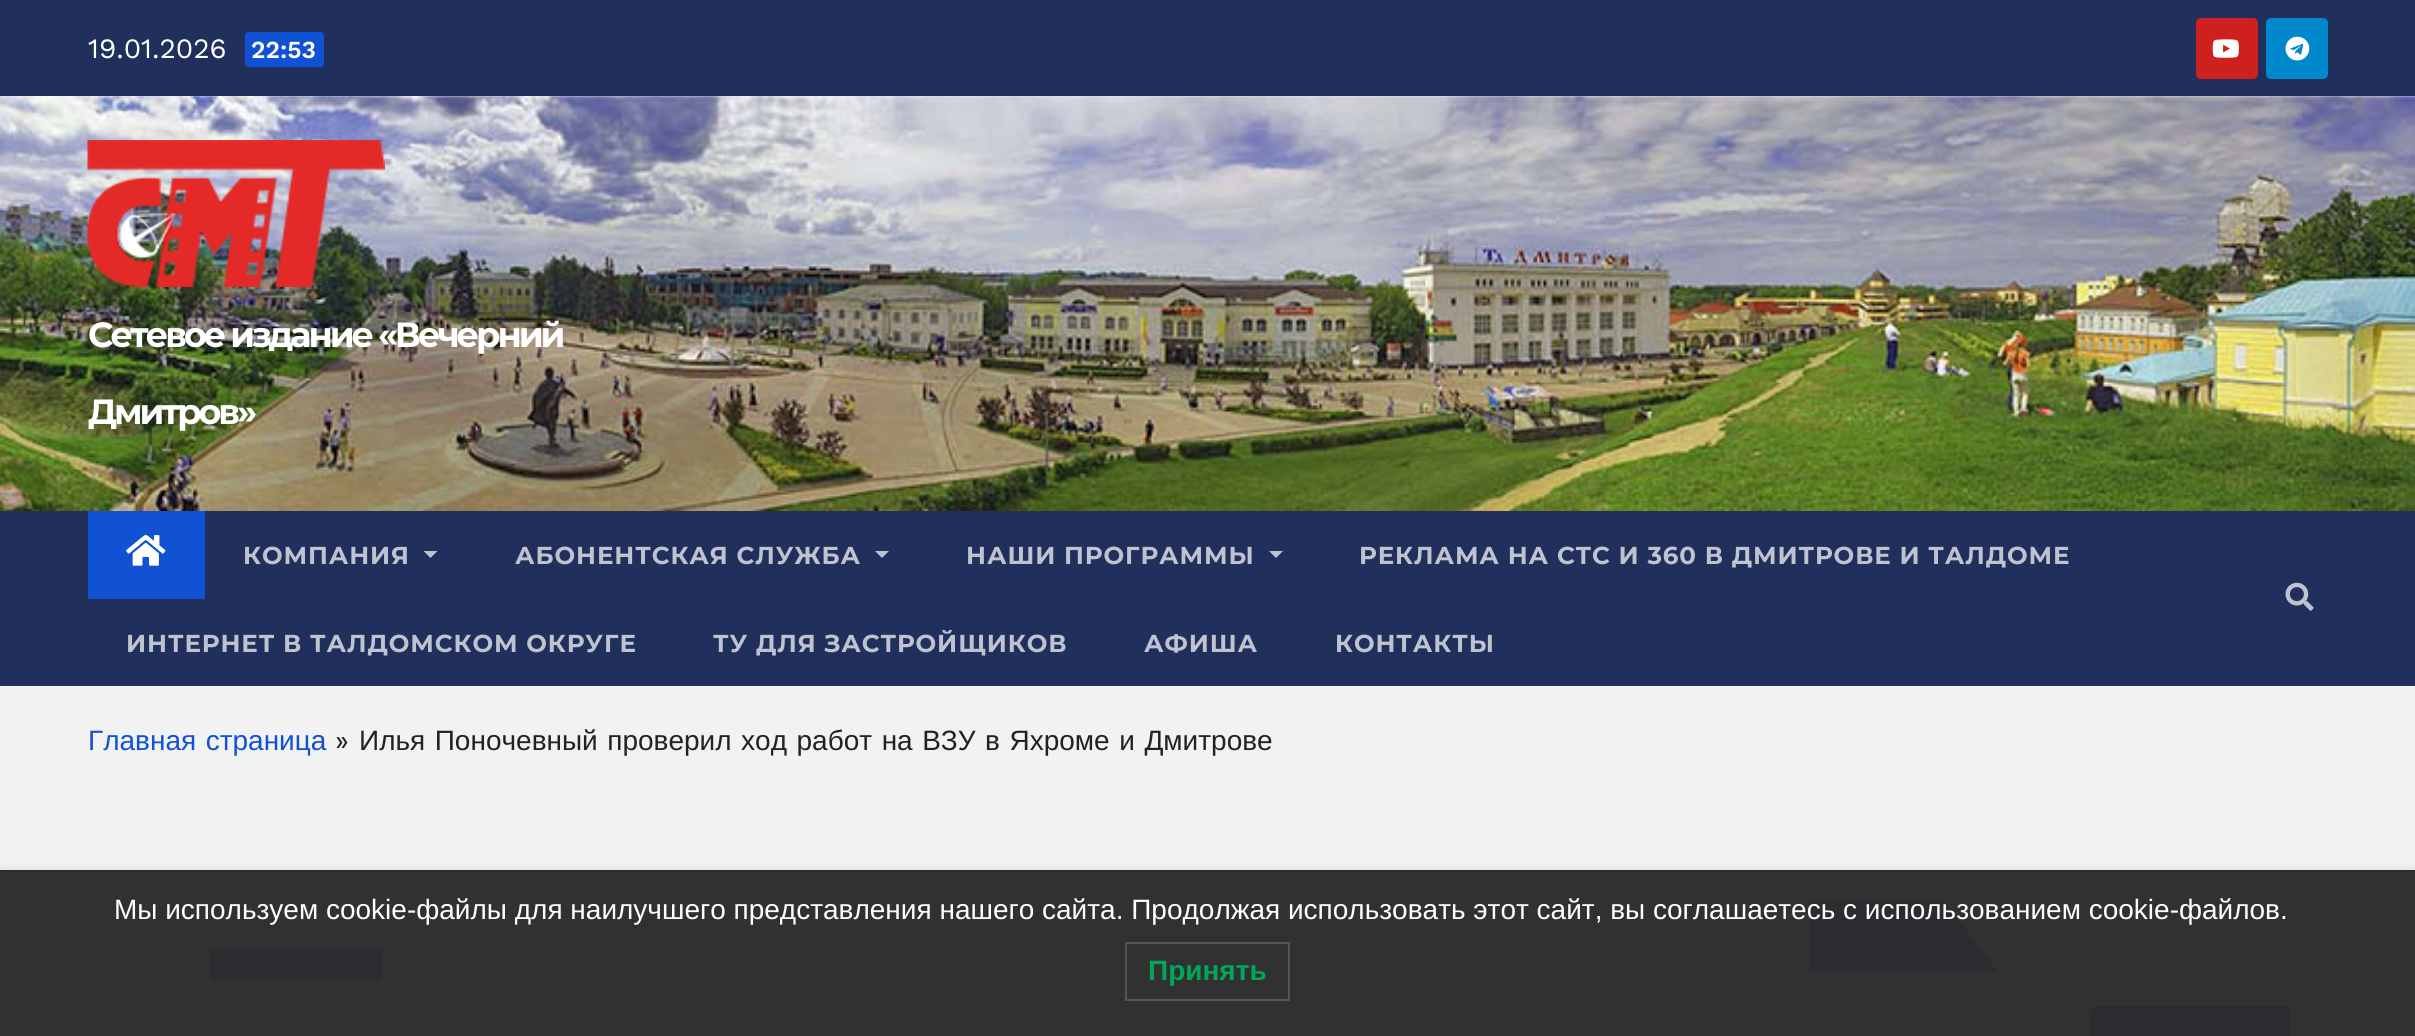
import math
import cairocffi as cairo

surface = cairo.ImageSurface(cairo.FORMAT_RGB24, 2415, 1036)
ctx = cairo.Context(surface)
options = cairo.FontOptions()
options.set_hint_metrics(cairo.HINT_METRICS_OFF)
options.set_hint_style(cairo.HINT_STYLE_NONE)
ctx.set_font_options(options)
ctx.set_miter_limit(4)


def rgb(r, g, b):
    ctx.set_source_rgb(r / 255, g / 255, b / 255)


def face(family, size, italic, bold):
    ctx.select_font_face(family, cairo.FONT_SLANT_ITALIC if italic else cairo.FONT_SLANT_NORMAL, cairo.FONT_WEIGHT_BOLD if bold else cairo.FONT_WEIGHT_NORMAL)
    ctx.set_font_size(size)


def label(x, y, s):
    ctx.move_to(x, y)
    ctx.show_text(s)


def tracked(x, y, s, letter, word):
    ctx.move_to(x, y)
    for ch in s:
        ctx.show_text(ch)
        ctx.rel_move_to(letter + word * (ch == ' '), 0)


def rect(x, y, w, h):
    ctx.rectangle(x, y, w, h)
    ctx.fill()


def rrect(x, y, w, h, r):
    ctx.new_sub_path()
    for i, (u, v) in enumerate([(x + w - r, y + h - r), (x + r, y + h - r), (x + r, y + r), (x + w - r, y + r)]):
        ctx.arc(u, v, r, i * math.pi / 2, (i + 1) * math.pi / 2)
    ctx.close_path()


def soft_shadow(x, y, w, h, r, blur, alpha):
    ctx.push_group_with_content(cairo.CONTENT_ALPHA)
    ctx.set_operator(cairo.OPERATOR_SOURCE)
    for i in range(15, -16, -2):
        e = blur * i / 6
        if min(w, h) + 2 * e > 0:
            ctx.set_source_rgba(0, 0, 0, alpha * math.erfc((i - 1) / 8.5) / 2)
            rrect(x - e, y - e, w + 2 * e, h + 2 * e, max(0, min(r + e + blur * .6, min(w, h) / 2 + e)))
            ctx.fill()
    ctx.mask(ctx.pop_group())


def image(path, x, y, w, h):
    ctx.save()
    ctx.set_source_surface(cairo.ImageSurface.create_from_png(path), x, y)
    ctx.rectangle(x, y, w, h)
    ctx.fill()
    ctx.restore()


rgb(242, 242, 242)
ctx.paint()
rgb(49, 49, 49)
rect(0, 872, 2415, 164)
rgb(32, 47, 91)
rect(0, 0, 2415, 96)
face('Work Sans', 28, 0, 0)
rgb(255, 255, 255)
label(88, 58, '19.01.2026')
rgb(17, 81, 211)
rrect(245, 32, 79, 35, 4)
ctx.fill()
face('Work Sans SemiBold', 24.5, 0, 0)
rgb(255, 255, 255)
label(251, 58, '22:53')
rgb(205, 32, 31)
rrect(2196, 18, 62, 61, 5)
ctx.fill()
image('image0.png', 2212, 39, 27, 19)
rgb(0, 136, 204)
rrect(2266, 18, 62, 61, 5)
ctx.fill()
image('image1.png', 2285, 36, 25, 25)
image('image2.png', 0, 96, 2415, 415)
image('image3.png', 87, 140, 298, 147)
face('Montserrat', 35, 0, 1)
rgb(255, 255, 255)
tracked(88, 347, 'Сетевое издание «Вечерний', -3, 0)
tracked(88, 424, 'Дмитров»', -3, 0)
rgb(32, 47, 91)
rect(0, 511, 2415, 175)
rgb(17, 81, 211)
rect(88, 511, 117, 88)
image('image4.png', 126, 535, 40, 31)
face('Montserrat', 24.5, 0, 1)
rgb(190, 195, 207)
tracked(243, 564, 'КОМПАНИЯ', 0.9, 0)
ctx.new_path()
ctx.move_to(423.5, 551)
ctx.line_to(437.5, 551)
ctx.line_to(430.5, 558)
ctx.close_path()
ctx.fill()
tracked(515, 564, 'АБОНЕНТСКАЯ СЛУЖБА', 0.9, 0)
ctx.new_path()
ctx.move_to(875, 551)
ctx.line_to(889, 551)
ctx.line_to(882, 558)
ctx.close_path()
ctx.fill()
tracked(966, 564, 'НАШИ ПРОГРАММЫ', 0.9, 0)
ctx.new_path()
ctx.move_to(1269, 551)
ctx.line_to(1283, 551)
ctx.line_to(1276, 558)
ctx.close_path()
ctx.fill()
tracked(1359, 564, 'РЕКЛАМА НА СТС И 360 В ДМИТРОВЕ И ТАЛДОМЕ', 0.9, 0)
tracked(126, 652, 'ИНТЕРНЕТ В ТАЛДОМСКОМ ОКРУГЕ', 0.9, 0)
tracked(713, 652, 'ТУ ДЛЯ ЗАСТРОЙЩИКОВ', 0.9, 0)
tracked(1144, 652, 'АФИША', 0.9, 0)
tracked(1335, 652, 'КОНТАКТЫ', 0.9, 0)
image('image5.png', 2285, 582, 29, 29)
face('Liberation Sans', 28, 0, 0)
rgb(17, 81, 211)
tracked(88, 750, 'Главная страница', 0, 1.75)
face('Work Sans', 28, 0, 0)
rgb(34, 34, 34)
label(335, 750, '»')
face('Liberation Sans', 28, 0, 0)
tracked(359, 750, 'Илья Поночевный проверил ход работ на ВЗУ в Яхроме и Дмитрове', 0, 1.75)
rgb(42, 44, 48)
rrect(210, 949, 173, 31, 5)
ctx.fill()
rect(1810, 901, 134, 71)
ctx.new_path()
ctx.move_to(1944, 971)
ctx.line_to(1944, 901)
ctx.line_to(1997, 971)
ctx.close_path()
ctx.fill()
rrect(2091, 1006, 200, 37, 7)
ctx.fill()
ctx.save()
ctx.rectangle(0, 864, 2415, 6)
ctx.clip()
rgb(0, 0, 0)
soft_shadow(0, 870, 2415, 166, 0, 7, 0.1)
ctx.restore()
rgb(43, 43, 43)
rect(0, 870, 2415, 2)
rgb(255, 255, 255)
label(114, 919, 'Мы используем cookie-файлы для наилучшего представления нашего сайта. Продолжая использовать этот сайт, вы соглашаетесь с использованием cookie-файлов.')
ctx.rectangle(1126, 943, 163, 57)
rgb(85, 85, 85)
ctx.stroke()
face('Liberation Sans', 28, 0, 1)
rgb(0, 166, 90)
label(1148, 980, 'Принять')
surface.write_to_png('render.png')
